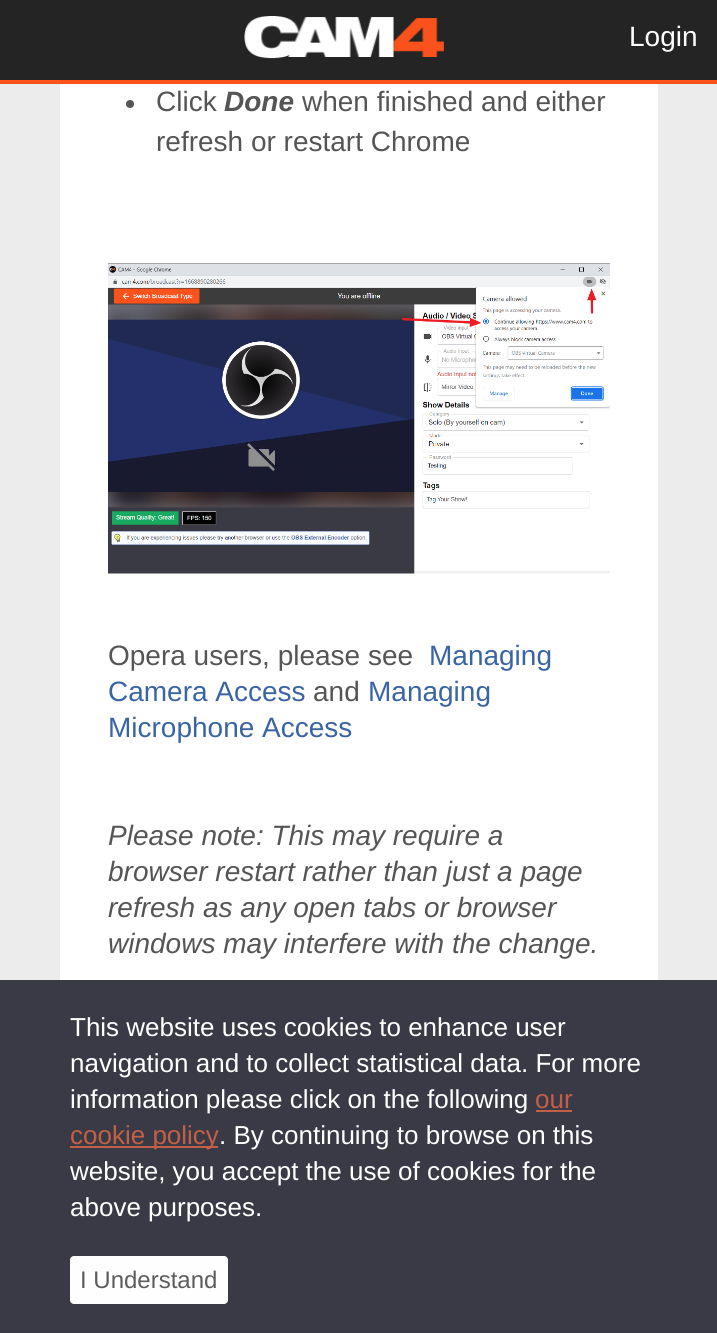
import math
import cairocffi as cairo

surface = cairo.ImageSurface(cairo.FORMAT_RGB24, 717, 1333)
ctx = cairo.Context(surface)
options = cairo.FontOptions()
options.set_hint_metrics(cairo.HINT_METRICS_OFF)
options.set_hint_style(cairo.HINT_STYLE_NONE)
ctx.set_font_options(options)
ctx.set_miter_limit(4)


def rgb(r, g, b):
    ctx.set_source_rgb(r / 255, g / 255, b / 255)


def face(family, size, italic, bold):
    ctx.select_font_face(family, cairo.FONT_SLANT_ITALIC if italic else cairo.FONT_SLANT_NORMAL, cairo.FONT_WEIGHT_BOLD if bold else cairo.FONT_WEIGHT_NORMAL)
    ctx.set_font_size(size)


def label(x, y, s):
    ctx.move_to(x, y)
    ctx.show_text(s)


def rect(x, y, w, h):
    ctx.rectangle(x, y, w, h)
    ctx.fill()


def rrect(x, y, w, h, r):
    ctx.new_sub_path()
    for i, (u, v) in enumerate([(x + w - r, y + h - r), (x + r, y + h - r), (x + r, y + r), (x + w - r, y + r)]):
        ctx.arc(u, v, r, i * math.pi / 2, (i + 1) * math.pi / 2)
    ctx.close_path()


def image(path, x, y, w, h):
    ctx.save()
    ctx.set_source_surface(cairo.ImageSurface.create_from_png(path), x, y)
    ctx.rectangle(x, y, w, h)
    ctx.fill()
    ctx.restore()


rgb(236, 236, 236)
ctx.paint()
rgb(36, 36, 36)
rect(0, 0, 717, 80)
image('image0.png', 244, 16, 200, 43)
face('Liberation Sans', 28, 0, 0)
rgb(255, 255, 255)
label(629, 46, 'Login')
rgb(252, 83, 29)
rect(0, 80, 717, 4)
rgb(255, 255, 255)
rect(60, 84, 598, 896)
rgb(85, 85, 85)
ctx.new_path()
ctx.arc(130, 104, 4, 0, 2 * math.pi)
ctx.fill()
label(156, 111, 'Click')
face('Liberation Sans', 28, 1, 1)
label(224, 111, 'Done')
face('Liberation Sans', 28, 0, 0)
label(302, 111, 'when finished and either')
label(156, 151, 'refresh or restart Chrome')
image('image1.png', 108, 263, 502, 311)
label(108, 665, 'Opera users, please see')
rgb(58, 100, 164)
label(429, 665, 'Managing')
label(108, 701, 'Camera Access')
rgb(85, 85, 85)
label(313, 701, 'and')
rgb(58, 100, 164)
label(368, 701, 'Managing')
label(108, 737, 'Microphone Access')
face('Liberation Sans', 28, 1, 0)
rgb(85, 85, 85)
label(108, 845, 'Please note: This may require a')
label(108, 881, 'browser restart rather than just a page')
label(108, 917, 'refresh as any open tabs or browser')
label(108, 953, 'windows may interfere with the change.')
rgb(58, 58, 70)
rect(0, 980, 717, 353)
face('Liberation Sans', 26, 0, 0)
rgb(255, 255, 255)
label(70, 1036, 'This website uses cookies to enhance user')
label(70, 1072, 'navigation and to collect statistical data. For more')
label(70, 1108, 'information please click on the following')
rgb(193, 96, 70)
label(535, 1108, 'our')
rect(536, 1110, 36, 2)
rect(70, 1146, 148, 2)
label(70, 1144, 'cookie policy')
rgb(255, 255, 255)
label(219, 1144, '. By continuing to browse on this')
label(70, 1180, 'website, you accept the use of cookies for the')
label(70, 1216, 'above purposes.')
rgb(254, 254, 254)
rrect(70, 1256, 158, 48, 4)
ctx.fill()
face('Liberation Sans', 24, 0, 0)
rgb(92, 92, 92)
label(80, 1288, 'I Understand')
surface.write_to_png('render.png')
